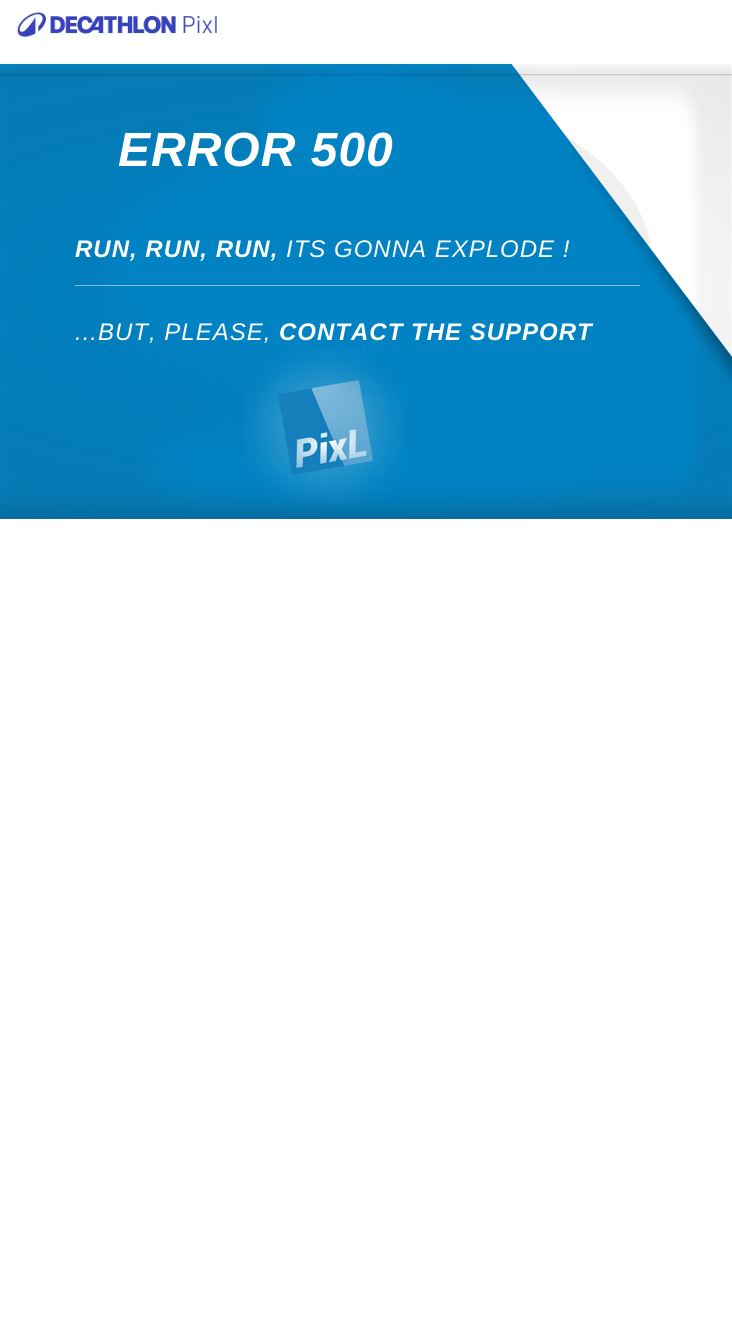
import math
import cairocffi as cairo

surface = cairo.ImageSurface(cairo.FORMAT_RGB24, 732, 1324)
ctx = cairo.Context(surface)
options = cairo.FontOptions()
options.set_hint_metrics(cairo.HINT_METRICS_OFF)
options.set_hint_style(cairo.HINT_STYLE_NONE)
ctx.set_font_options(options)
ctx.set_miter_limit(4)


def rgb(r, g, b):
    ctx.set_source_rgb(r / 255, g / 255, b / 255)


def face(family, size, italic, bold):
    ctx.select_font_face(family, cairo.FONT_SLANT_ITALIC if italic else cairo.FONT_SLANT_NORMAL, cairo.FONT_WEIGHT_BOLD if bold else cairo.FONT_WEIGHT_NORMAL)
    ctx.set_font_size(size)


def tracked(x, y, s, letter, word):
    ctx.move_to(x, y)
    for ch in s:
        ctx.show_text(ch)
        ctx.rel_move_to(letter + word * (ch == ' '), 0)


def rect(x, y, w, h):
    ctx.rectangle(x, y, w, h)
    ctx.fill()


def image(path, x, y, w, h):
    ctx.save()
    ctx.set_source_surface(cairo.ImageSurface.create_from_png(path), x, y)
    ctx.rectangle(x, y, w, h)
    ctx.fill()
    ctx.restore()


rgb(255, 255, 255)
ctx.paint()
image('image0.png', 17, 12, 200, 25)
image('image4.png', 537, 99, 195, 258)
image('image2.png', 0, 64, 732, 455)
image('image1.png', 0, 64, 732, 455)
face('Liberation Sans', 48, 1, 1)
rgb(255, 255, 255)
tracked(118, 166, 'ERROR 500', 1, 0)
face('Liberation Sans', 24, 1, 1)
tracked(75, 257, 'RUN, RUN, RUN,', 1, 0)
face('Liberation Sans', 24, 1, 0)
tracked(286, 257, 'ITS GONNA EXPLODE !', 1, 0)
rgb(128, 190, 222)
rect(75, 285, 565, 1)
rgb(255, 255, 255)
tracked(75, 340, '...BUT, PLEASE,', 1, 0)
face('Liberation Sans', 24, 1, 1)
tracked(279, 340, 'CONTACT THE SUPPORT', 1, 0)
image('image3.png', 243, 348, 164, 158)
surface.write_to_png('render.png')
